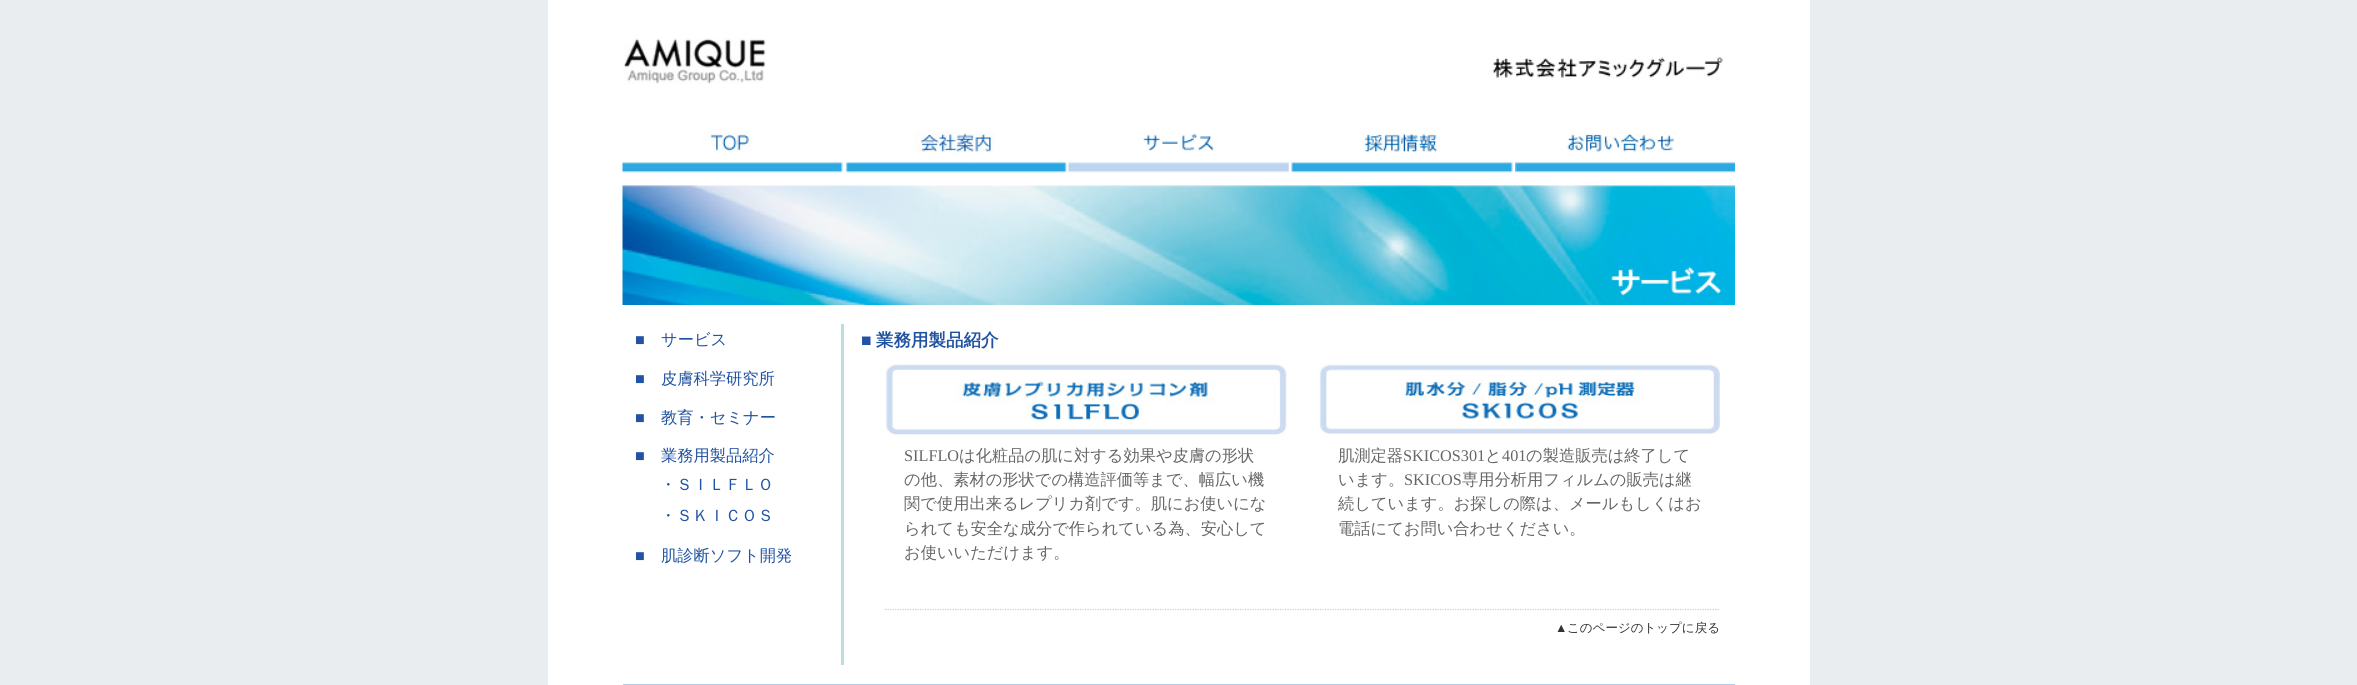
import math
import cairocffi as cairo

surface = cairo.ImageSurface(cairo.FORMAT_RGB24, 2357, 685)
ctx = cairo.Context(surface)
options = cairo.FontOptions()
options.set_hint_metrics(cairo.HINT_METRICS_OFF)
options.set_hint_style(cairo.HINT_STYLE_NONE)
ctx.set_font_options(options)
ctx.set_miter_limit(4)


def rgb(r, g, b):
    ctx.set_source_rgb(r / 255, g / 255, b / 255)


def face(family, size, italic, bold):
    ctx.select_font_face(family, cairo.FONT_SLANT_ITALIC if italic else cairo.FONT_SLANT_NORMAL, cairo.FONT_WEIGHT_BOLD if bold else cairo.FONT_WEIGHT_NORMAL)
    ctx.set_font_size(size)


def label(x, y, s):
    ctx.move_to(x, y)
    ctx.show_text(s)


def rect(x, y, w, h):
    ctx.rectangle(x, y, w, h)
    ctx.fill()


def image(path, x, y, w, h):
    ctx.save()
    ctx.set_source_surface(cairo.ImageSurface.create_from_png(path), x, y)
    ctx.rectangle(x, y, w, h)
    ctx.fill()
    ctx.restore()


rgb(233, 237, 240)
ctx.paint()
rgb(255, 255, 255)
rect(548, 0, 1262, 685)
image('image0.png', 623, 38, 143, 46)
image('image1.png', 1492, 57, 231, 21)
image('image2.png', 622, 131, 221, 42)
image('image3.png', 845, 132, 223, 41)
image('image4.png', 1067, 133, 222, 40)
image('image5.png', 1291, 133, 222, 40)
image('image6.png', 1515, 133, 220, 40)
image('image7.png', 622, 185, 1113, 120)
face('Liberation Serif', 16.25, 0, 0)
rgb(32, 83, 161)
label(635, 345, '■')
face('WenQuanYi Zen Hei Medium', 16.25, 0, 0)
label(661, 345, 'サービス')
face('Liberation Serif', 16.25, 0, 0)
label(635, 384, '■')
face('WenQuanYi Zen Hei Medium', 16.25, 0, 0)
label(661, 384, '皮膚科学研究所')
face('Liberation Serif', 16.25, 0, 0)
label(635, 423, '■')
face('WenQuanYi Zen Hei Medium', 16.25, 0, 0)
label(661, 423, '教育・セミナー')
face('Liberation Serif', 16.25, 0, 0)
label(635, 461, '■')
face('WenQuanYi Zen Hei Medium', 16.25, 0, 0)
label(661, 461, '業務用製品紹介')
label(660, 490, '・ＳＩＬＦＬＯ')
label(660, 521, '・ＳＫＩＣＯＳ')
face('Liberation Serif', 16.25, 0, 0)
label(635, 561, '■')
face('WenQuanYi Zen Hei Medium', 16.25, 0, 0)
label(661, 561, '肌診断ソフト開発')
rgb(189, 220, 224)
rect(841, 324, 3, 341)
face('Liberation Serif', 17.5, 0, 1)
rgb(32, 83, 161)
label(861, 346, '■')
face('WenQuanYi Zen Hei', 17.5, 0, 1)
label(876, 346, '業務用製品紹介')
image('image8.png', 885, 364, 402, 71)
face('Liberation Serif', 16.25, 0, 0)
rgb(102, 102, 102)
label(904, 461, 'SILFLO')
face('WenQuanYi Zen Hei Medium', 16.25, 0, 0)
label(959, 461, 'は化粧品の肌に対する効果や皮膚の形状')
label(904, 485, 'の他、素材の形状での構造評価等まで、幅広い機')
label(904, 509, '関で使用出来るレプリカ剤です。肌にお使いにな')
label(904, 534, 'られても安全な成分で作られている為、安心して')
label(904, 558, 'お使いいただけます。')
image('image9.png', 1319, 364, 401, 70)
label(1338, 461, '肌測定器')
face('Liberation Serif', 16.25, 0, 0)
label(1403, 461, 'SKICOS301')
face('WenQuanYi Zen Hei Medium', 16.25, 0, 0)
label(1485, 461, 'と')
face('Liberation Serif', 16.25, 0, 0)
label(1502, 461, '401')
face('WenQuanYi Zen Hei Medium', 16.25, 0, 0)
label(1526, 461, 'の製造販売は終了して')
label(1338, 485, 'います。')
face('Liberation Serif', 16.25, 0, 0)
label(1404, 485, 'SKICOS')
face('WenQuanYi Zen Hei Medium', 16.25, 0, 0)
label(1462, 485, '専用分析用フィルムの販売は継')
label(1338, 509, '続しています。お探しの際は、メールもしくはお')
label(1338, 534, '電話にてお問い合わせください。')
ctx.new_path()
ctx.move_to(885, 609.5)
ctx.line_to(1720, 609.5)
rgb(204, 204, 204)
ctx.set_line_width(1.2)
ctx.set_dash([1.25, 1.25])
ctx.stroke()
face('Liberation Serif', 12.5, 0, 0)
rgb(51, 51, 51)
label(1555, 632, '▲')
face('WenQuanYi Zen Hei Medium', 12.5, 0, 0)
label(1567, 632, 'このページのトップに戻る')
rgb(177, 203, 235)
rect(623, 684, 1112, 1)
surface.write_to_png('render.png')
